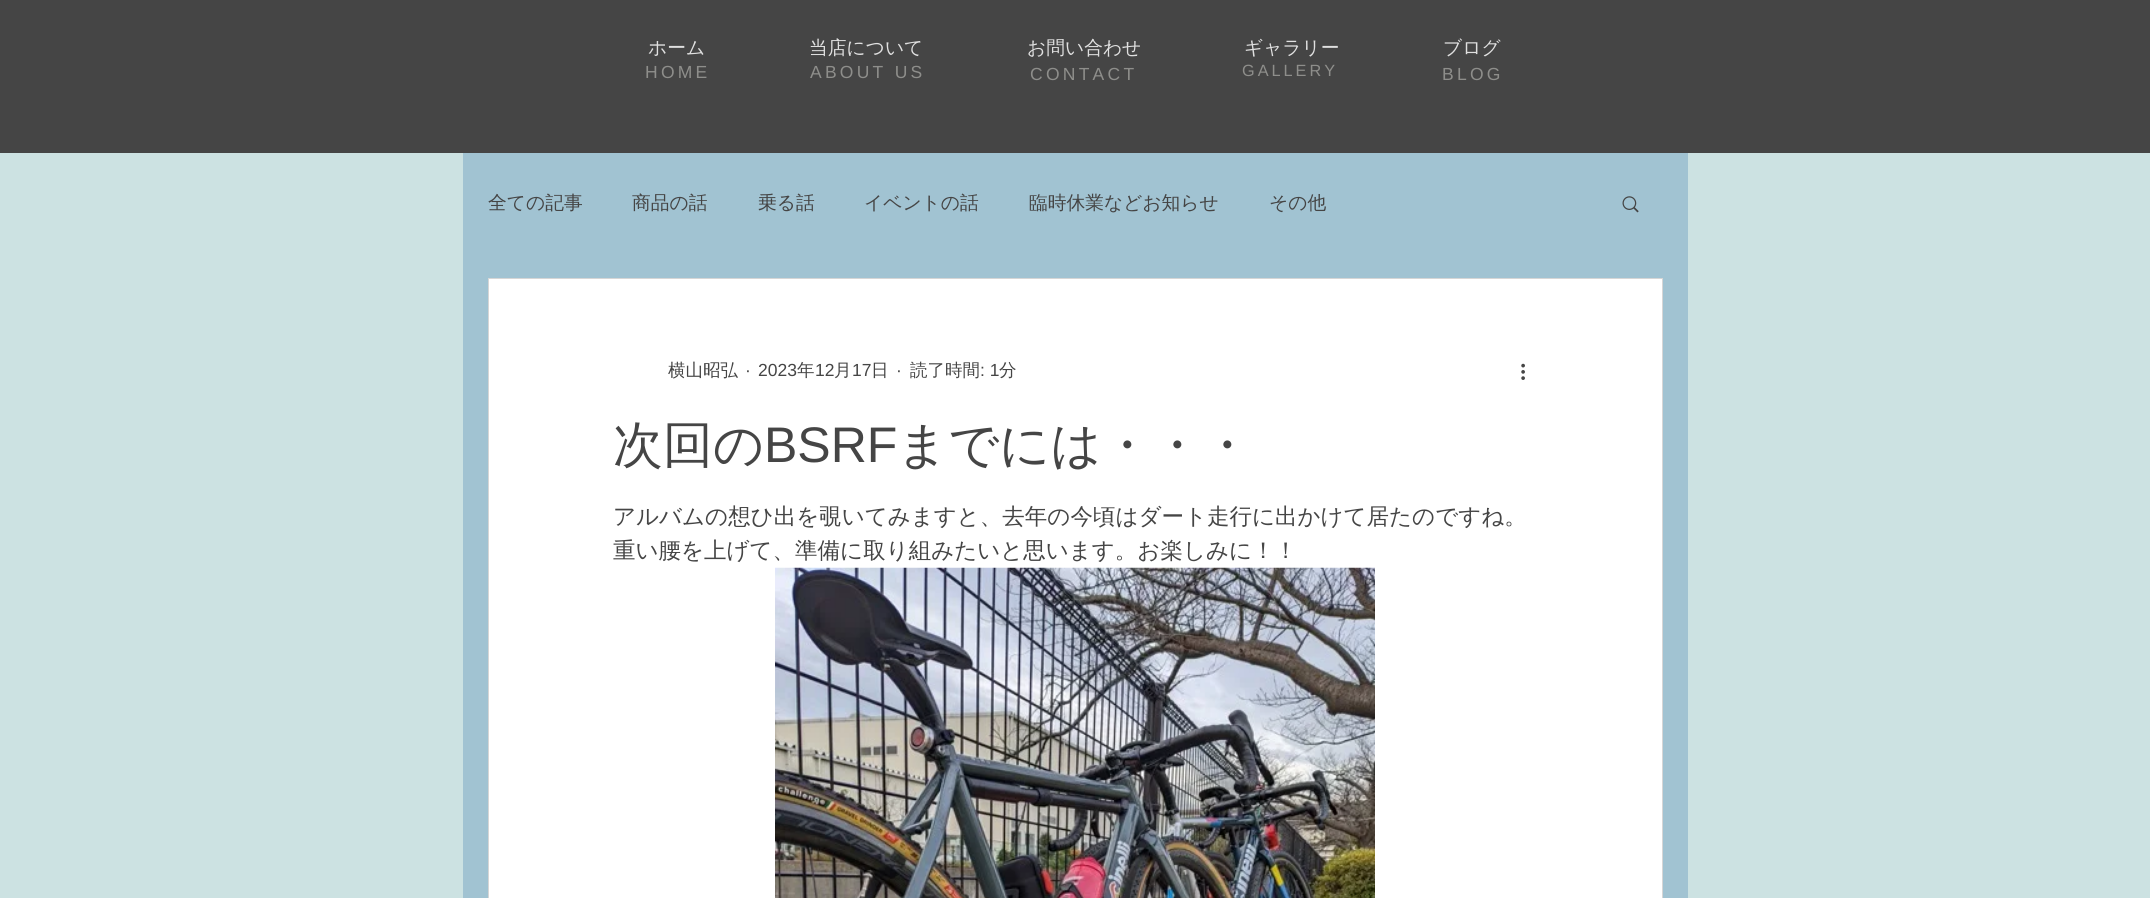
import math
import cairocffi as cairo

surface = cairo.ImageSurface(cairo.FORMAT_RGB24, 2150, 898)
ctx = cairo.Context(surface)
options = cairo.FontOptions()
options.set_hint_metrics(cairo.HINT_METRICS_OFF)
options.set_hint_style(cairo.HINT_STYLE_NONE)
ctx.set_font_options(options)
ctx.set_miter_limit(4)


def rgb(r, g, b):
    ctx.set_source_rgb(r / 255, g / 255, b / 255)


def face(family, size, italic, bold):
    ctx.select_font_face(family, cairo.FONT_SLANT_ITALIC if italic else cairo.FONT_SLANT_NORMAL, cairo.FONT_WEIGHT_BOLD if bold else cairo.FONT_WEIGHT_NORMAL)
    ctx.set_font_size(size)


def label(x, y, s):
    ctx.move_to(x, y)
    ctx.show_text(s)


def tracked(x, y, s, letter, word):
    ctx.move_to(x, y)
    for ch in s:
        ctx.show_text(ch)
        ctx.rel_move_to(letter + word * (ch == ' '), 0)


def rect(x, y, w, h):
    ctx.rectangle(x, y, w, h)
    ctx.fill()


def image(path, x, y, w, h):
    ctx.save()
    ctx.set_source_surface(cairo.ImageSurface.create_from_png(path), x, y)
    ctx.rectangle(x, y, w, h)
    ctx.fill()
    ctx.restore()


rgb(204, 226, 226)
ctx.paint()
rgb(69, 69, 69)
rect(0, 0, 2150, 153)
face('WenQuanYi Zen Hei Medium', 18.75, 0, 0)
rgb(224, 224, 224)
label(648, 54, 'ホーム')
label(809, 54, '当店について')
label(1027, 54, 'お問い合わせ')
label(1244, 54, 'ギャラリー')
label(1443, 54, 'ブログ')
face('Liberation Sans', 17.5, 0, 0)
rgb(142, 142, 139)
tracked(645, 78, 'HOME', 3.25, 0)
tracked(810, 78, 'ABOUT US', 3.25, 0)
tracked(1030, 80, 'CONTACT', 3.25, 0)
face('Liberation Sans', 16.25, 0, 0)
tracked(1242, 76, 'GALLERY', 3, 0)
face('Liberation Sans', 17.5, 0, 0)
tracked(1442, 80, 'BLOG', 3.25, 0)
rgb(161, 195, 210)
rect(463, 153, 1225, 745)
face('WenQuanYi Zen Hei Medium', 18.75, 0, 0)
rgb(69, 69, 69)
label(488, 209, '全ての記事')
label(632, 209, '商品の話')
label(758, 209, '乗る話')
label(864, 209, 'イベントの話')
label(1029, 209, '臨時休業などお知らせ')
label(1269, 209, 'その他')
image('image0.png', 1622, 196, 17, 17)
rgb(255, 255, 255)
ctx.rectangle(488.5, 278.5, 1174, 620)
ctx.fill_preserve()
rgb(214, 214, 214)
ctx.set_line_width(1)
ctx.stroke()
face('WenQuanYi Zen Hei Medium', 17.5, 0, 0)
rgb(69, 69, 69)
label(668, 376, '横山昭弘')
face('Liberation Sans', 17.5, 0, 0)
label(745, 376, '·')
label(758, 376, '2023')
face('WenQuanYi Zen Hei Medium', 17.5, 0, 0)
label(797, 376, '年')
face('Liberation Sans', 17.5, 0, 0)
label(815, 376, '12')
face('WenQuanYi Zen Hei Medium', 17.5, 0, 0)
label(834, 376, '月')
face('Liberation Sans', 17.5, 0, 0)
label(852, 376, '17')
face('WenQuanYi Zen Hei Medium', 17.5, 0, 0)
label(871, 376, '日')
face('Liberation Sans', 17.5, 0, 0)
label(896, 376, '·')
face('WenQuanYi Zen Hei Medium', 17.5, 0, 0)
label(910, 376, '読了時間')
face('Liberation Sans', 17.5, 0, 0)
label(980, 376, ': 1')
face('WenQuanYi Zen Hei Medium', 17.5, 0, 0)
label(999, 376, '分')
image('image1.png', 1521, 363, 4, 17)
face('WenQuanYi Zen Hei Medium', 50, 0, 0)
label(613, 462, '次回の')
face('Liberation Sans', 50, 0, 0)
label(764, 462, 'BSRF')
face('WenQuanYi Zen Hei Medium', 50, 0, 0)
label(897, 462, 'までには・・・')
face('WenQuanYi Zen Hei Medium', 22.5, 0, 0)
label(613, 524, 'アルバムの想ひ出を覗いてみますと、去年の今頃はダート走行に出かけて居たのですね。')
label(613, 558, '重い腰を上げて、準備に取り組みたいと思います。お楽しみに！！')
image('image2.png', 775, 567, 600, 331)
surface.write_to_png('render.png')
